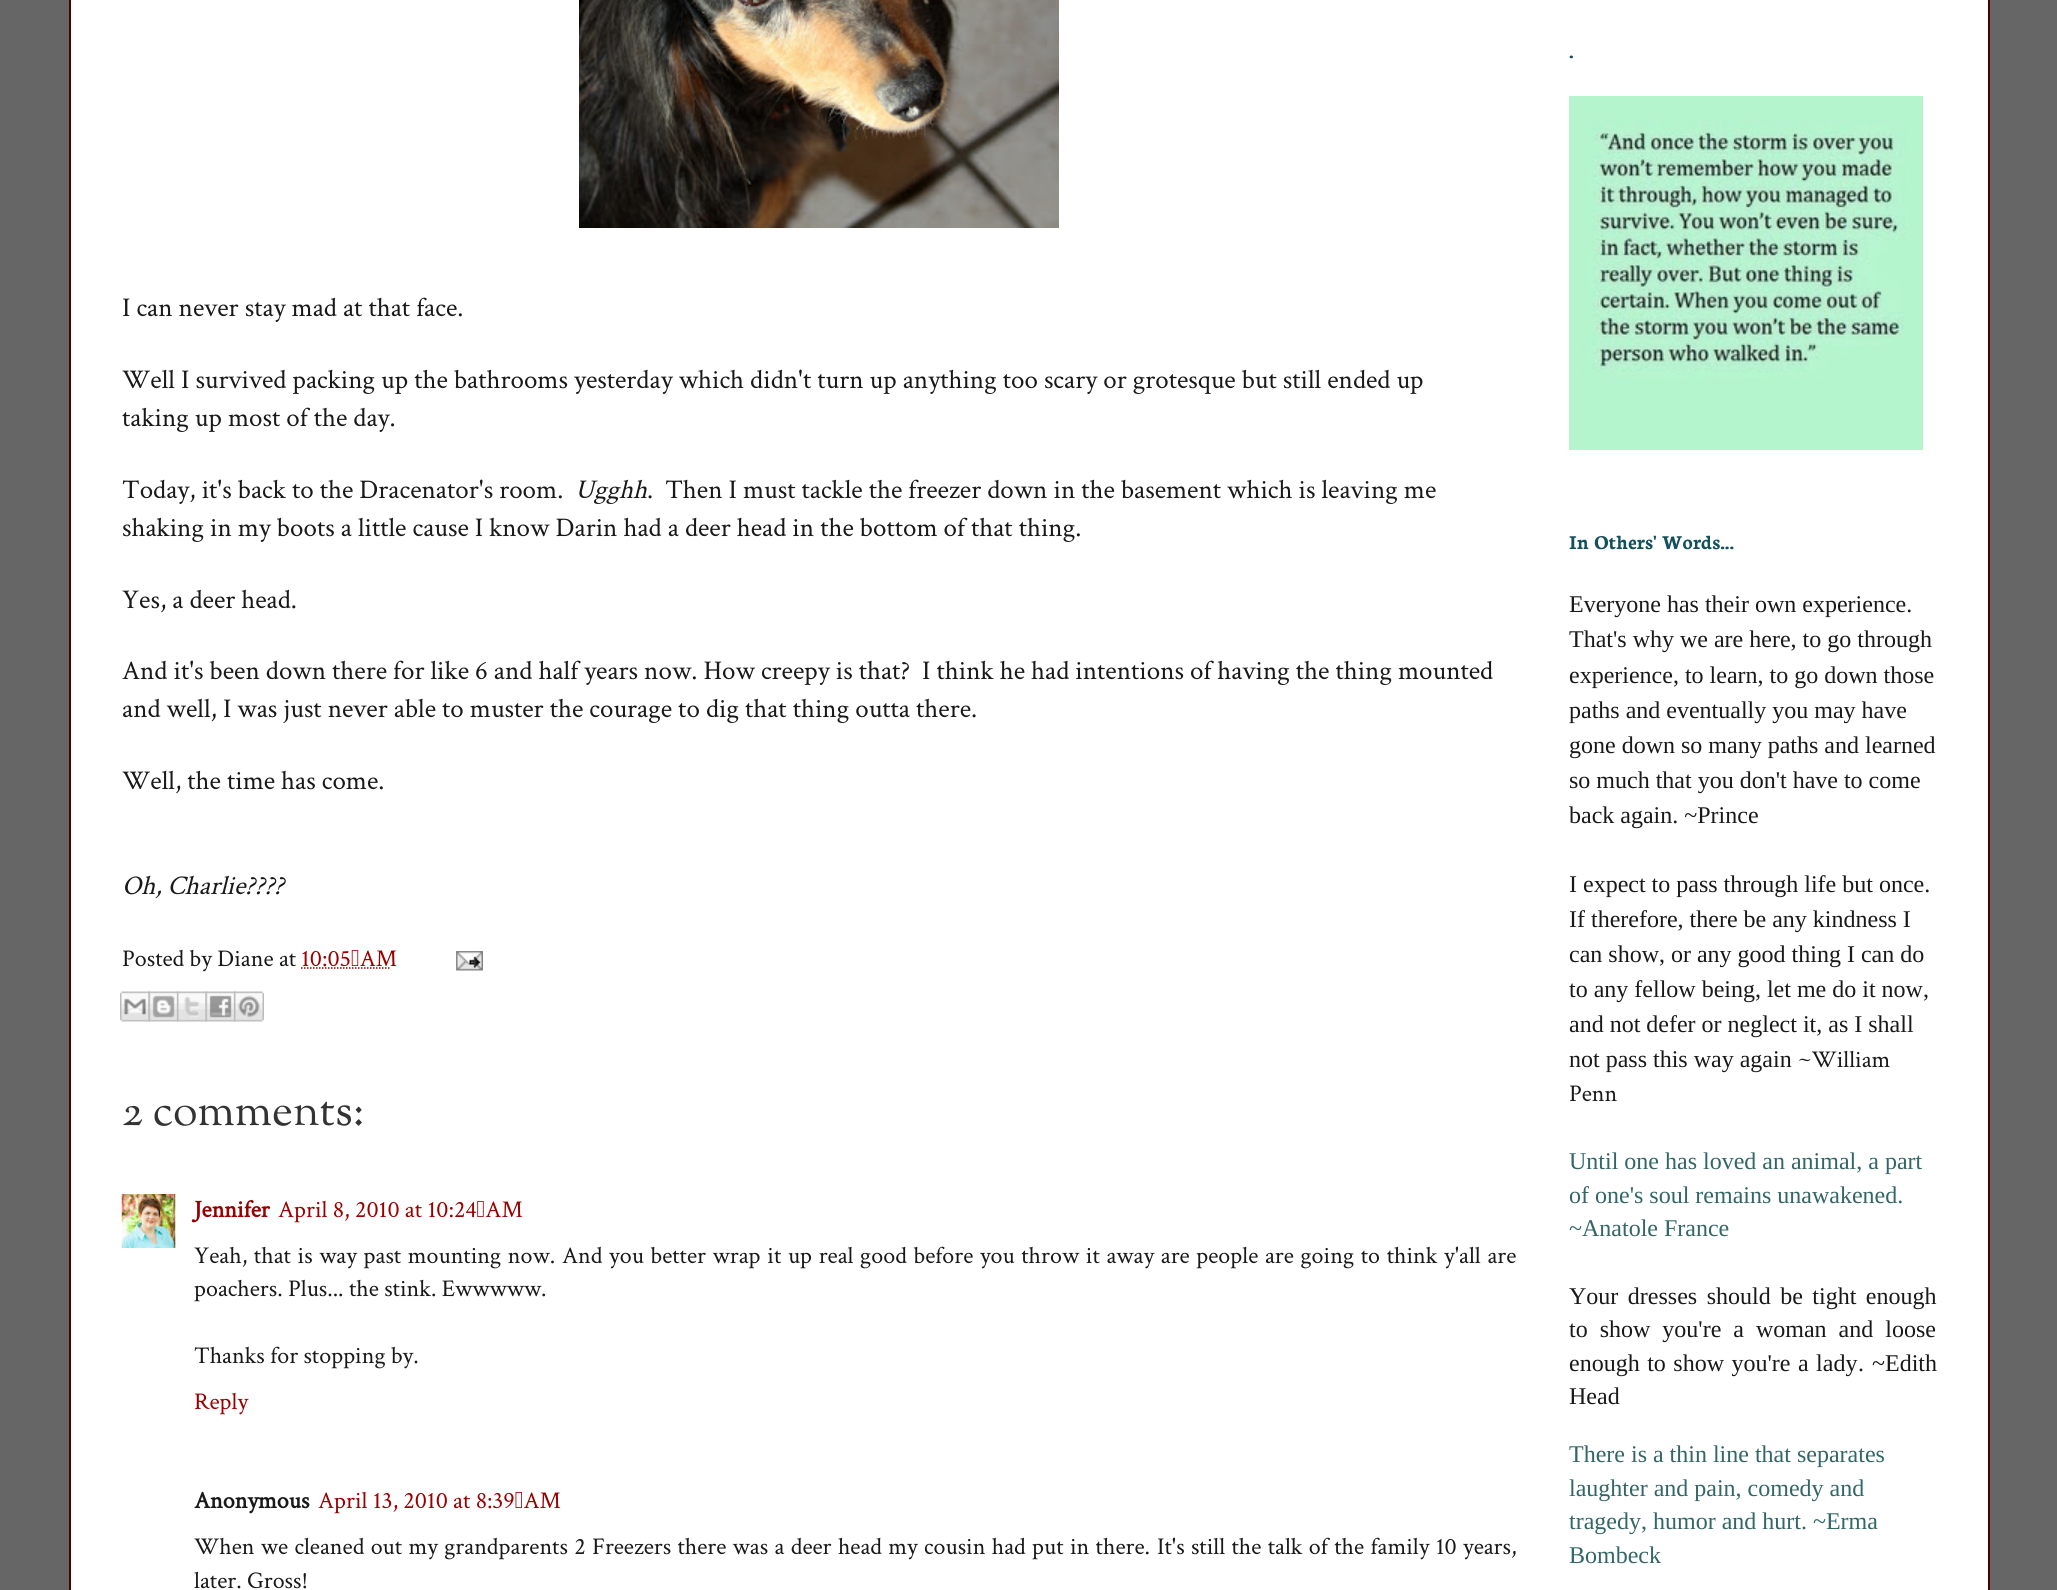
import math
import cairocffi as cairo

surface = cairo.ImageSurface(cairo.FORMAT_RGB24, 2057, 1590)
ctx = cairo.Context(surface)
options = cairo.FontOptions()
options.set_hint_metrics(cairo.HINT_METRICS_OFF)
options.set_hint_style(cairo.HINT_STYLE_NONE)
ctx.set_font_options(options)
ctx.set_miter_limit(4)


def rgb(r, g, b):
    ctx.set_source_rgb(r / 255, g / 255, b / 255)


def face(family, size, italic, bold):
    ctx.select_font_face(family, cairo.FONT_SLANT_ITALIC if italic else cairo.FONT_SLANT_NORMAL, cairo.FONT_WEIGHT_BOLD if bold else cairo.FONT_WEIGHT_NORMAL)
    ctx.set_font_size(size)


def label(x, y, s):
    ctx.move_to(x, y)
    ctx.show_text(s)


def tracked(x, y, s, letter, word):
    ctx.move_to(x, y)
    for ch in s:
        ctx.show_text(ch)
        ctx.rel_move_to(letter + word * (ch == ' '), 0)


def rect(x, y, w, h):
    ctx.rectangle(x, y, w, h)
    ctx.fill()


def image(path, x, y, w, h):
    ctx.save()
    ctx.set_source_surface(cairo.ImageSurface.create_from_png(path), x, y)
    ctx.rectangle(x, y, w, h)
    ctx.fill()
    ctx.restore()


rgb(102, 102, 102)
ctx.paint()
rgb(255, 255, 255)
rect(71, 0, 1917, 1590)
rgb(76, 0, 0)
rect(1988, 0, 2, 1590)
rect(69, 0, 2, 1590)
image('image0.png', 579, 0, 480, 228)
face('Crimson Text', 27, 0, 0)
rgb(25, 25, 25)
label(122, 316, 'I can never stay mad at that face.')
label(122, 388, 'Well I survived packing up the bathrooms yesterday which didn\'t turn up anything too scary or grotesque but still ended up')
label(122, 426, 'taking up most of the day.')
label(122, 498, 'Today, it\'s back to the Dracenator\'s room.')
face('Crimson Text', 27, 1, 0)
label(575, 498, 'Ugghh')
face('Crimson Text', 27, 0, 0)
label(647, 498, '.  Then I must tackle the freezer down in the basement which is leaving me')
label(122, 536, 'shaking in my boots a little cause I know Darin had a deer head in the bottom of that thing.')
label(122, 608, 'Yes, a deer head.')
label(122, 679, 'And it\'s been down there for like 6 and half years now. How creepy is that?  I think he had intentions of having the thing mounted')
label(122, 717, 'and well, I was just never able to muster the courage to dig that thing outta there.')
label(122, 789, 'Well, the time has come.')
face('Crimson Text', 27, 1, 0)
label(122, 894, 'Oh, Charlie????')
face('Crimson Text', 24, 0, 0)
label(122, 966, 'Posted by Diane at')
rgb(153, 0, 0)
label(301, 966, '10:05 AM')
ctx.new_path()
ctx.move_to(301, 968)
ctx.line_to(391, 968)
ctx.set_line_width(1.5)
ctx.set_dash([1.5, 1.5])
ctx.stroke()
image('image1.png', 456, 951, 27, 20)
image('image2.png', 120, 991, 30, 31)
image('image3.png', 148, 991, 31, 31)
image('image4.png', 177, 991, 30, 31)
image('image5.png', 205, 991, 31, 31)
image('image6.png', 234, 991, 30, 31)
face('Sorts Mill Goudy', 45, 0, 0)
rgb(51, 51, 51)
label(122, 1125, '2 comments:')
image('image7.png', 121, 1194, 55, 54)
face('Crimson Text', 24, 0, 1)
rgb(153, 0, 0)
label(194, 1217, 'Jennifer')
face('Crimson Text', 24, 0, 0)
label(278, 1217, 'April 8, 2010 at 10:24 AM')
rgb(25, 25, 25)
tracked(194, 1263, 'Yeah, that is way past mounting now.', 0, 1.25)
tracked(562, 1263, 'And you better wrap it up real good before you throw it away are people are going to think y\'all are', 0, 1.3)
label(194, 1296, 'poachers. Plus... the stink. Ewwwww.')
label(194, 1363, 'Thanks for stopping by.')
rgb(153, 0, 0)
label(194, 1409, 'Reply')
face('Crimson Text', 24, 0, 1)
rgb(25, 25, 25)
label(194, 1508, 'Anonymous')
face('Crimson Text', 24, 0, 0)
rgb(153, 0, 0)
label(318, 1508, 'April 13, 2010 at 8:39 AM')
rgb(25, 25, 25)
tracked(194, 1554, 'When we cleaned out my grandparents 2 Freezers there was a deer head my cousin had put in there.', 0, 1)
tracked(1157, 1554, 'It\'s still the talk of the family 10 years,', 0, 1)
label(194, 1588, 'later. Gross!')
face('Neuton', 21, 0, 1)
rgb(19, 79, 92)
label(1569, 58, '.')
image('image8.png', 1569, 96, 354, 354)
label(1569, 549, 'In Others\' Words...')
face('Liberation Serif', 24, 0, 0)
rgb(25, 25, 25)
label(1569, 612, 'Everyone has their own experience.')
label(1569, 647, 'That\'s why we are here, to go through')
label(1569, 683, 'experience, to learn, to go down those')
label(1569, 718, 'paths and eventually you may have')
label(1569, 753, 'gone down so many paths and learned')
label(1569, 788, 'so much that you don\'t have to come')
label(1569, 823, 'back again. ~Prince')
label(1569, 892, 'I expect to pass through life but once.')
label(1569, 927, 'If therefore, there be any kindness I')
label(1569, 962, 'can show, or any good thing I can do')
label(1569, 997, 'to any fellow being, let me do it now,')
label(1569, 1032, 'and not defer or neglect it, as I shall')
label(1569, 1067, 'not pass this way again')
face('Crimson Text', 24, 0, 0)
label(1798, 1067, '~William')
label(1569, 1101, 'Penn')
face('Liberation Serif', 24, 0, 0)
rgb(51, 102, 102)
label(1569, 1169, 'Until one has loved an animal, a part')
label(1569, 1203, 'of one\'s soul remains unawakened.')
label(1569, 1236, '~Anatole France')
rgb(25, 25, 25)
tracked(1569, 1304, 'Your dresses should be tight enough', 0, 3.5)
tracked(1569, 1337, 'to show you\'re a woman and loose', 0, 6)
tracked(1569, 1371, 'enough to show you\'re a lady', 0, 1.5)
tracked(1858, 1371, '. ~Edith', 0, 2)
label(1569, 1404, 'Head')
rgb(51, 102, 102)
label(1569, 1462, 'There is a thin line that separates')
label(1569, 1496, 'laughter and pain, comedy and')
label(1569, 1529, 'tragedy, humor and hurt. ~Erma')
label(1569, 1563, 'Bombeck')
surface.write_to_png('render.png')
